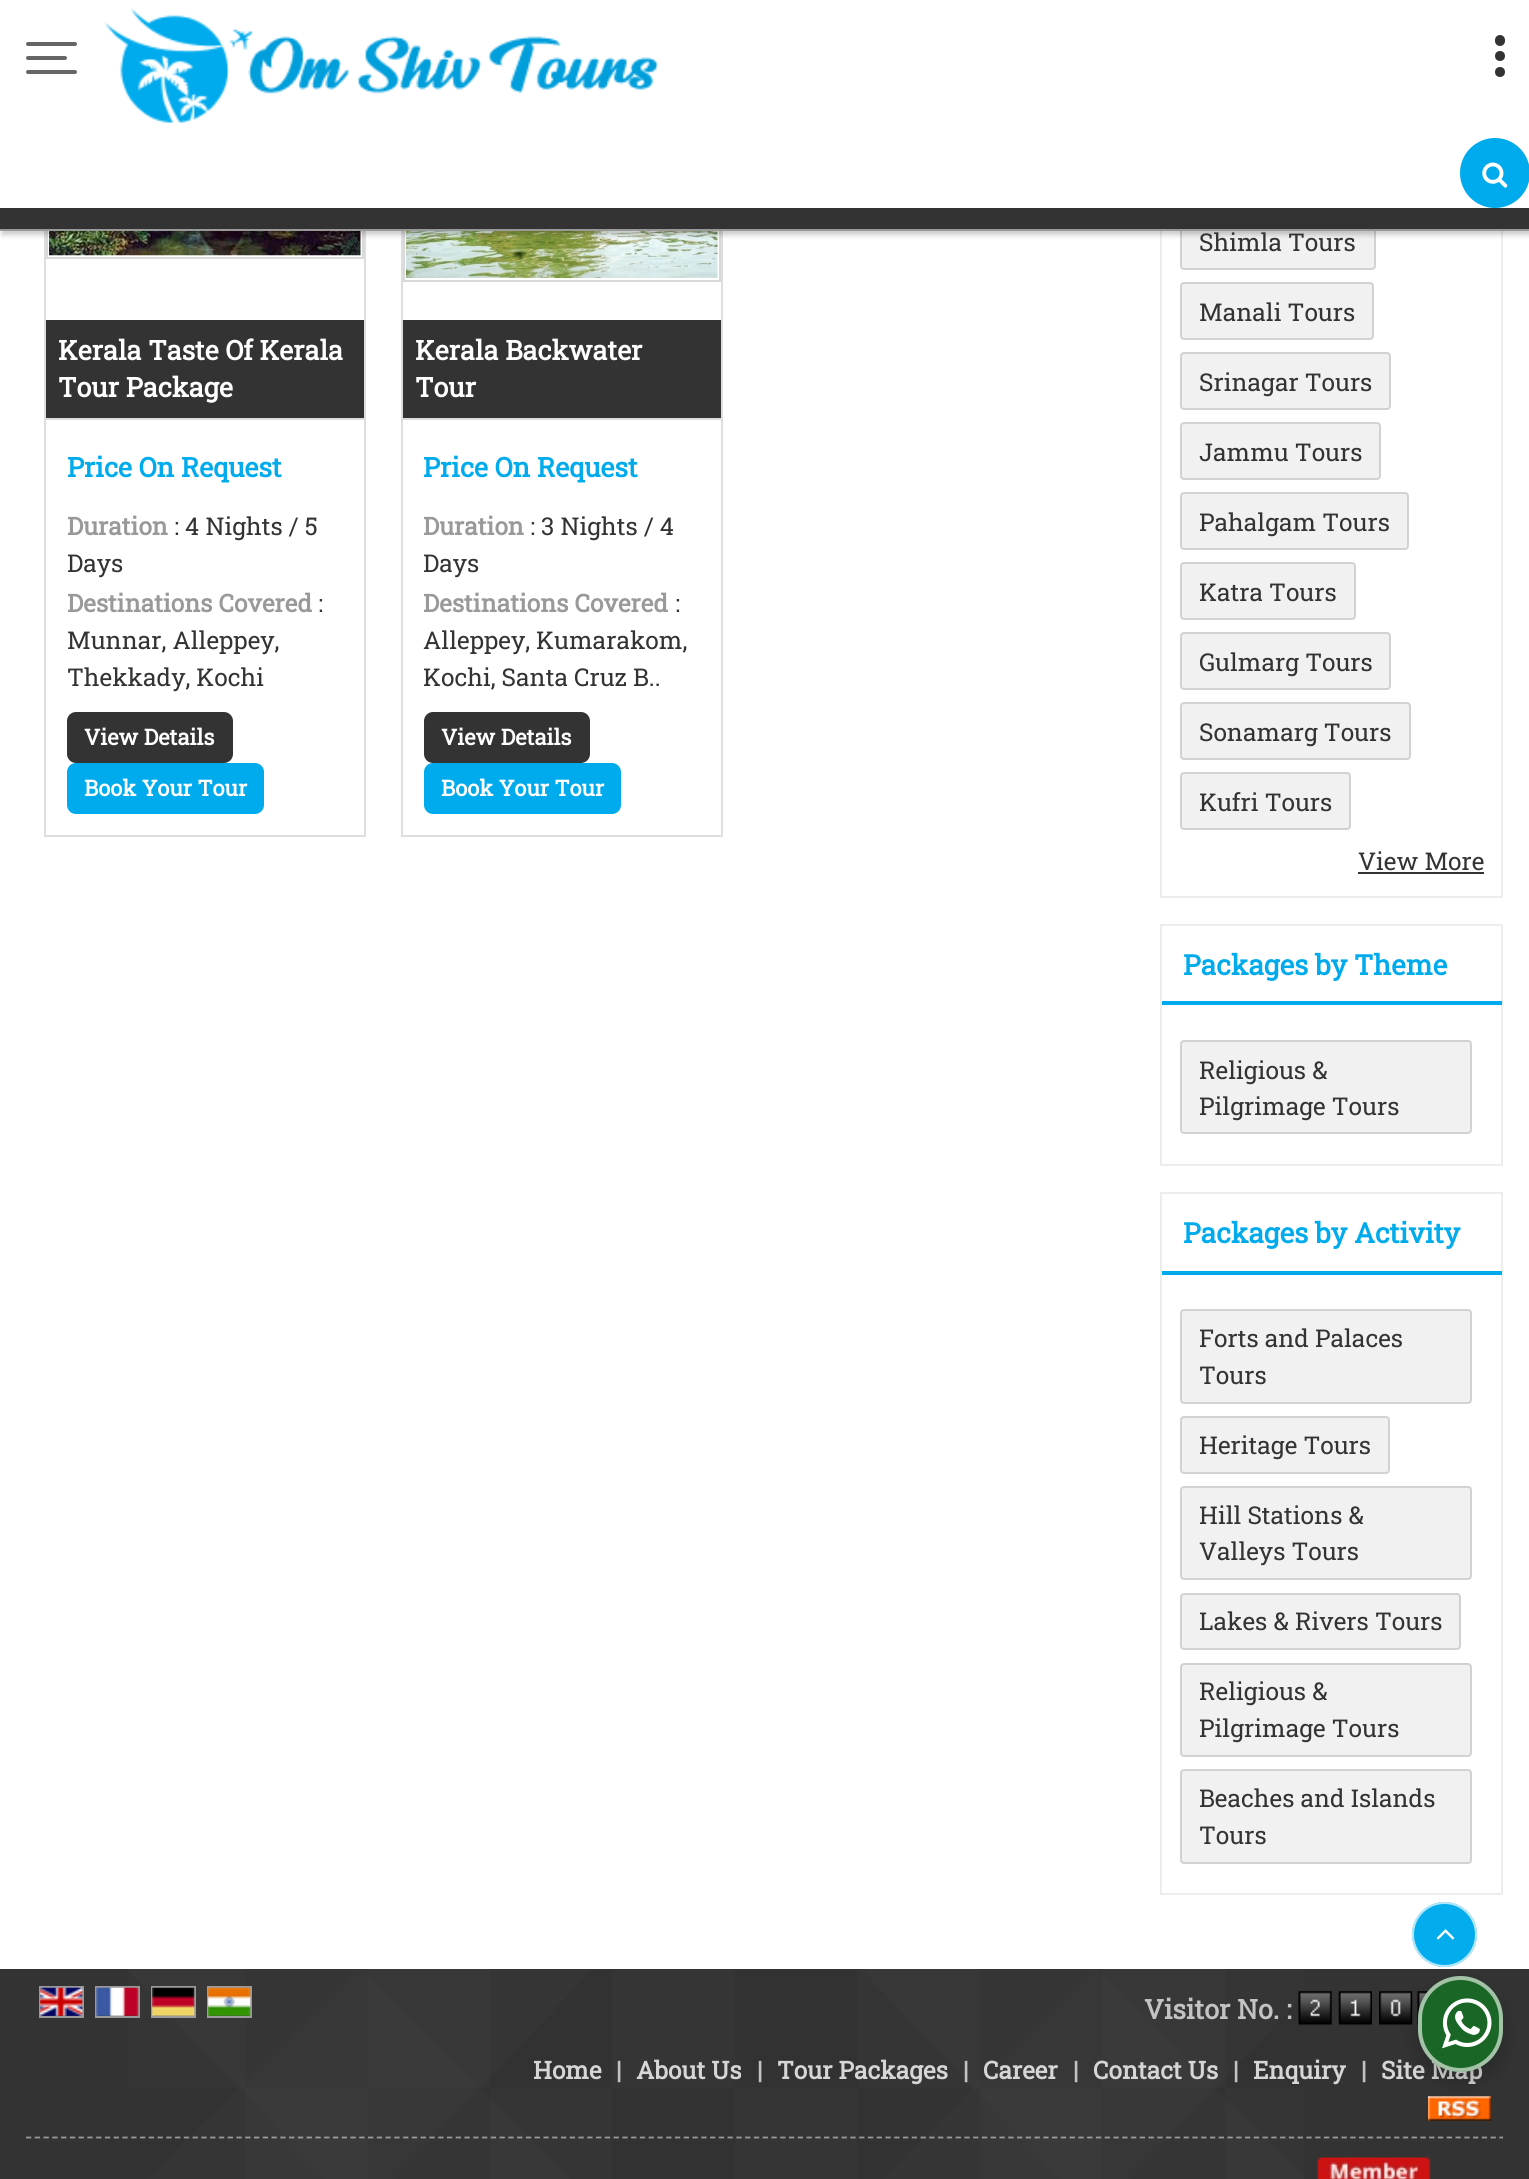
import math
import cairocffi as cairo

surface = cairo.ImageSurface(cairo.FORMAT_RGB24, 1529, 2179)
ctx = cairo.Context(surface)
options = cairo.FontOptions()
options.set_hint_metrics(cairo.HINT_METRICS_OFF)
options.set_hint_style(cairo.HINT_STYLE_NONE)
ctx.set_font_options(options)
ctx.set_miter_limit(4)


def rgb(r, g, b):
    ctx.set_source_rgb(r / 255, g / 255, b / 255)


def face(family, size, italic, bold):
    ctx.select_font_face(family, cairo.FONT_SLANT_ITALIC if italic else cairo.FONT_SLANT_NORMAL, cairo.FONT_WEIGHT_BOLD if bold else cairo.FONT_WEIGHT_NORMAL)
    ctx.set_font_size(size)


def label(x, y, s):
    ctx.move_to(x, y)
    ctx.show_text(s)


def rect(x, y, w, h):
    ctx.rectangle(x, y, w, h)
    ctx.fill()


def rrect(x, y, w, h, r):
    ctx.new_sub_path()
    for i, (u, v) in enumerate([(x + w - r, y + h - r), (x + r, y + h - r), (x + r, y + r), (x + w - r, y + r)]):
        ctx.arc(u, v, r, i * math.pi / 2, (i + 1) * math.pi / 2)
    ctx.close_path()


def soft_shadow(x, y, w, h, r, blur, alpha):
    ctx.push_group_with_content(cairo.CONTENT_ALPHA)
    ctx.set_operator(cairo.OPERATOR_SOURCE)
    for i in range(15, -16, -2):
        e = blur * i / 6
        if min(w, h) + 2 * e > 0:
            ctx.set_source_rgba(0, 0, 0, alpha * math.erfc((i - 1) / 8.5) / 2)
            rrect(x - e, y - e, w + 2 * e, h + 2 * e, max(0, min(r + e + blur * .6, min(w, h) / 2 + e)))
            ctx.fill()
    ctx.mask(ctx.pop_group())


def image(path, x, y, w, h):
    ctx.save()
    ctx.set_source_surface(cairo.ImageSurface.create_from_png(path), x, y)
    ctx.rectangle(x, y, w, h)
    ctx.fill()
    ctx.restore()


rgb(255, 255, 255)
ctx.paint()
ctx.rectangle(45, 5, 320, 831)
rgb(222, 222, 222)
ctx.stroke()
ctx.rectangle(47, 68, 316, 190)
rgb(217, 217, 217)
ctx.stroke()
image('image2.png', 49, 231, 312, 25)
ctx.rectangle(402, 5, 320, 831)
rgb(222, 222, 222)
ctx.stroke()
ctx.rectangle(404, 43, 316, 238)
rgb(217, 217, 217)
ctx.stroke()
image('image3.png', 406, 231, 312, 47)
ctx.rectangle(1161, -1, 341, 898)
rgb(237, 237, 237)
ctx.stroke()
rgb(241, 241, 241)
rrect(1180, 212, 196, 58, 4)
ctx.fill()
rrect(1181, 213, 194, 56, 3)
ctx.set_source_rgba(0, 0, 0, 0.13)
ctx.stroke()
rgb(0, 0, 0)
soft_shadow(2, 4, 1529, 231, 0, 2.5, 0.2)
rgb(255, 255, 255)
rect(0, 0, 1529, 208)
rgb(153, 153, 153)
rect(0, 229, 1529, 2)
image('image0.png', 105, 8, 553, 115)
rgb(51, 51, 51)
ctx.arc(1500, 56, 5, 0, 2 * math.pi)
ctx.fill()
rrect(1495, 35, 10, 11, 5)
ctx.fill()
ctx.arc(1500, 72, 5, 0, 2 * math.pi)
ctx.fill()
rgb(0, 171, 237)
ctx.arc(1495, 173, 35, 0, 2 * math.pi)
ctx.fill()
image('image1.png', 1482, 162, 26, 26)
rgb(51, 51, 51)
rect(0, 208, 1529, 21)
rgb(102, 102, 102)
rrect(26, 42, 51, 4, 2)
ctx.fill()
rrect(26, 56, 41, 4, 2)
ctx.fill()
rrect(26, 70, 51, 4, 2)
ctx.fill()
rgb(51, 51, 51)
rect(46, 320, 318, 98)
face('Roboto Slab', 27, 0, 1)
rgb(255, 255, 255)
label(58, 360, 'Kerala Taste Of Kerala')
label(58, 397, 'Tour Package')
rgb(222, 222, 222)
rect(46, 418, 318, 2)
rgb(0, 171, 237)
label(67, 477, 'Price On Request')
face('Roboto Slab', 24.5, 0, 1)
rgb(153, 153, 153)
label(67, 535, 'Duration')
face('Roboto Slab', 24.5, 0, 0)
rgb(51, 51, 51)
label(174, 535, ': 4 Nights / 5')
label(67, 572, 'Days')
face('Roboto Slab', 24.5, 0, 1)
rgb(153, 153, 153)
label(67, 612, 'Destinations Covered')
face('Roboto Slab', 24.5, 0, 0)
rgb(51, 51, 51)
label(318, 612, ':')
label(67, 649, 'Munnar, Alleppey,')
label(67, 686, 'Thekkady, Kochi')
rrect(67, 712, 166, 51, 9)
ctx.fill()
face('Roboto Slab', 22, 0, 1)
rgb(255, 255, 255)
label(84, 745, 'View Details')
rgb(0, 171, 237)
rrect(67, 763, 197, 51, 9)
ctx.fill()
rgb(255, 255, 255)
label(84, 796, 'Book Your Tour')
rgb(51, 51, 51)
rect(403, 320, 318, 98)
face('Roboto Slab', 27, 0, 1)
rgb(255, 255, 255)
label(415, 360, 'Kerala Backwater')
label(415, 397, 'Tour')
rgb(222, 222, 222)
rect(403, 418, 318, 2)
rgb(0, 171, 237)
label(423, 477, 'Price On Request')
face('Roboto Slab', 24.5, 0, 1)
rgb(153, 153, 153)
label(423, 535, 'Duration')
face('Roboto Slab', 24.5, 0, 0)
rgb(51, 51, 51)
label(530, 535, ': 3 Nights / 4')
label(423, 572, 'Days')
face('Roboto Slab', 24.5, 0, 1)
rgb(153, 153, 153)
label(423, 612, 'Destinations Covered')
face('Roboto Slab', 24.5, 0, 0)
rgb(51, 51, 51)
label(675, 612, ':')
label(423, 649, 'Alleppey, Kumarakom,')
label(423, 686, 'Kochi, Santa Cruz B..')
rrect(424, 712, 166, 51, 9)
ctx.fill()
face('Roboto Slab', 22, 0, 1)
rgb(255, 255, 255)
label(441, 745, 'View Details')
rgb(0, 171, 237)
rrect(424, 763, 197, 51, 9)
ctx.fill()
rgb(255, 255, 255)
label(441, 796, 'Book Your Tour')
face('Roboto Slab', 24.5, 0, 0)
rgb(51, 51, 51)
label(1199, 251, 'Shimla Tours')
rgb(241, 241, 241)
rrect(1180, 282, 194, 58, 4)
ctx.fill()
rrect(1181, 283, 192, 56, 3)
ctx.set_source_rgba(0, 0, 0, 0.13)
ctx.stroke()
rgb(51, 51, 51)
label(1199, 321, 'Manali Tours')
rgb(241, 241, 241)
rrect(1180, 352, 211, 58, 4)
ctx.fill()
rrect(1181, 353, 209, 56, 3)
ctx.set_source_rgba(0, 0, 0, 0.13)
ctx.stroke()
rgb(51, 51, 51)
label(1199, 391, 'Srinagar Tours')
rgb(241, 241, 241)
rrect(1180, 422, 201, 58, 4)
ctx.fill()
rrect(1181, 423, 199, 56, 3)
ctx.set_source_rgba(0, 0, 0, 0.13)
ctx.stroke()
rgb(51, 51, 51)
label(1199, 461, 'Jammu Tours')
rgb(241, 241, 241)
rrect(1180, 492, 229, 58, 4)
ctx.fill()
rrect(1181, 493, 227, 56, 3)
ctx.set_source_rgba(0, 0, 0, 0.13)
ctx.stroke()
rgb(51, 51, 51)
label(1199, 531, 'Pahalgam Tours')
rgb(241, 241, 241)
rrect(1180, 562, 176, 58, 4)
ctx.fill()
rrect(1181, 563, 174, 56, 3)
ctx.set_source_rgba(0, 0, 0, 0.13)
ctx.stroke()
rgb(51, 51, 51)
label(1199, 601, 'Katra Tours')
rgb(241, 241, 241)
rrect(1180, 632, 211, 58, 4)
ctx.fill()
rrect(1181, 633, 209, 56, 3)
ctx.set_source_rgba(0, 0, 0, 0.13)
ctx.stroke()
rgb(51, 51, 51)
label(1199, 671, 'Gulmarg Tours')
rgb(241, 241, 241)
rrect(1180, 702, 231, 58, 4)
ctx.fill()
rrect(1181, 703, 229, 56, 3)
ctx.set_source_rgba(0, 0, 0, 0.13)
ctx.stroke()
rgb(51, 51, 51)
label(1199, 741, 'Sonamarg Tours')
rgb(241, 241, 241)
rrect(1180, 772, 171, 58, 4)
ctx.fill()
rrect(1181, 773, 169, 56, 3)
ctx.set_source_rgba(0, 0, 0, 0.13)
ctx.stroke()
rgb(51, 51, 51)
label(1199, 811, 'Kufri Tours')
label(1358, 870, 'View More')
rect(1358, 872, 126, 2)
ctx.rectangle(1161, 925, 341, 240)
rgb(237, 237, 237)
ctx.stroke()
rgb(0, 171, 237)
rect(1162, 1001, 340, 4)
face('Roboto Slab', 28, 0, 1)
label(1183, 975, 'Packages by Theme')
rgb(241, 241, 241)
rrect(1180, 1040, 292, 94, 4)
ctx.fill()
rrect(1181, 1041, 290, 92, 3)
ctx.set_source_rgba(0, 0, 0, 0.13)
ctx.stroke()
face('Roboto Slab', 24.5, 0, 0)
rgb(51, 51, 51)
label(1199, 1079, 'Religious &')
label(1199, 1115, 'Pilgrimage Tours')
ctx.rectangle(1161, 1193, 341, 701)
rgb(237, 237, 237)
ctx.stroke()
rgb(0, 171, 237)
rect(1162, 1271, 340, 4)
face('Roboto Slab', 28, 0, 1)
label(1183, 1243, 'Packages by Activity')
rgb(241, 241, 241)
rrect(1180, 1309, 292, 95, 4)
ctx.fill()
rrect(1181, 1310, 290, 93, 3)
ctx.set_source_rgba(0, 0, 0, 0.13)
ctx.stroke()
face('Roboto Slab', 24.5, 0, 0)
rgb(51, 51, 51)
label(1199, 1347, 'Forts and Palaces')
label(1199, 1384, 'Tours')
rgb(241, 241, 241)
rrect(1180, 1416, 210, 58, 4)
ctx.fill()
rrect(1181, 1417, 208, 56, 3)
ctx.set_source_rgba(0, 0, 0, 0.13)
ctx.stroke()
rgb(51, 51, 51)
label(1199, 1454, 'Heritage Tours')
rgb(241, 241, 241)
rrect(1180, 1486, 292, 94, 4)
ctx.fill()
rrect(1181, 1487, 290, 92, 3)
ctx.set_source_rgba(0, 0, 0, 0.13)
ctx.stroke()
rgb(51, 51, 51)
label(1199, 1524, 'Hill Stations &')
label(1199, 1560, 'Valleys Tours')
rgb(241, 241, 241)
rrect(1180, 1593, 281, 57, 4)
ctx.fill()
rrect(1181, 1594, 279, 55, 3)
ctx.set_source_rgba(0, 0, 0, 0.13)
ctx.stroke()
rgb(51, 51, 51)
label(1199, 1630, 'Lakes & Rivers Tours')
rgb(241, 241, 241)
rrect(1180, 1663, 292, 94, 4)
ctx.fill()
rrect(1181, 1664, 290, 92, 3)
ctx.set_source_rgba(0, 0, 0, 0.13)
ctx.stroke()
rgb(51, 51, 51)
label(1199, 1700, 'Religious &')
label(1199, 1737, 'Pilgrimage Tours')
rgb(241, 241, 241)
rrect(1180, 1769, 292, 95, 4)
ctx.fill()
rrect(1181, 1770, 290, 93, 3)
ctx.set_source_rgba(0, 0, 0, 0.13)
ctx.stroke()
rgb(51, 51, 51)
label(1199, 1807, 'Beaches and Islands')
label(1199, 1844, 'Tours')
rect(0, 1969, 1529, 210)
image('image4.png', 128, 1969, 1176, 210)
ctx.rectangle(40, 1987, 43, 30)
rgb(153, 153, 153)
ctx.stroke()
ctx.rectangle(96, 1987, 43, 30)
ctx.stroke()
ctx.rectangle(152, 1987, 43, 30)
rgb(155, 155, 155)
ctx.stroke()
ctx.rectangle(208, 1987, 43, 30)
ctx.set_source_rgba(1, 1, 1, 0.5)
ctx.stroke()
image('image5.png', 40, 1987, 43, 29)
image('image6.png', 96, 1987, 43, 29)
image('image7.png', 152, 1987, 43, 29)
image('image8.png', 208, 1987, 43, 29)
face('Roboto Slab', 27, 0, 1)
rgb(195, 195, 195)
label(1144, 2019, 'Visitor No. :')
image('image9.png', 1298, 1991, 34, 34)
image('image10.png', 1338, 1991, 34, 34)
image('image11.png', 1379, 1991, 34, 34)
image('image12.png', 1417, 1991, 12, 34)
face('Roboto Slab', 24.5, 0, 1)
rgb(214, 214, 214)
label(533, 2079, 'Home')
rgb(195, 195, 195)
label(616, 2079, '|')
rgb(214, 214, 214)
label(636, 2079, 'About Us')
rgb(195, 195, 195)
label(757, 2079, '|')
rgb(214, 214, 214)
label(777, 2079, 'Tour Packages')
rgb(195, 195, 195)
label(963, 2079, '|')
rgb(214, 214, 214)
label(983, 2079, 'Career')
rgb(195, 195, 195)
label(1073, 2079, '|')
rgb(214, 214, 214)
label(1093, 2079, 'Contact Us')
rgb(195, 195, 195)
label(1233, 2079, '|')
rgb(214, 214, 214)
label(1253, 2079, 'Enquiry')
rgb(195, 195, 195)
label(1361, 2079, '|')
rgb(214, 214, 214)
label(1381, 2079, 'Site Map')
image('image13.png', 1428, 2096, 63, 25)
ctx.new_path()
ctx.move_to(26, 2137.5)
ctx.line_to(1503, 2137.5)
ctx.set_source_rgba(1, 1, 1, 0.5)
ctx.set_line_width(1.8)
ctx.set_dash([5.25, 3.52])
ctx.stroke()
image('image14.png', 1317, 2157, 114, 22)
rgb(3, 172, 237)
ctx.arc(1444.5, 1934.5, 32.5, 0, 2 * math.pi)
ctx.fill()
ctx.arc(1444.5, 1934.5, 31.5, 0, 2 * math.pi)
ctx.set_source_rgba(1, 1, 1, 0.7)
ctx.set_line_width(2)
ctx.set_dash([])
ctx.stroke()
image('image15.png', 1436, 1929, 19, 11)
rgb(0, 0, 0)
soft_shadow(1414, 1983, 93, 103, 46.5, 7, 0.14)
rgb(25, 102, 38)
rrect(1418, 1976, 85, 96, 42.5)
ctx.fill()
rrect(1420, 1978, 81, 92, 40.5)
ctx.set_source_rgba(1, 1, 1, 0.6)
ctx.set_line_width(4)
ctx.stroke()
image('image16.png', 1442, 1998, 50, 51)
surface.write_to_png('render.png')
